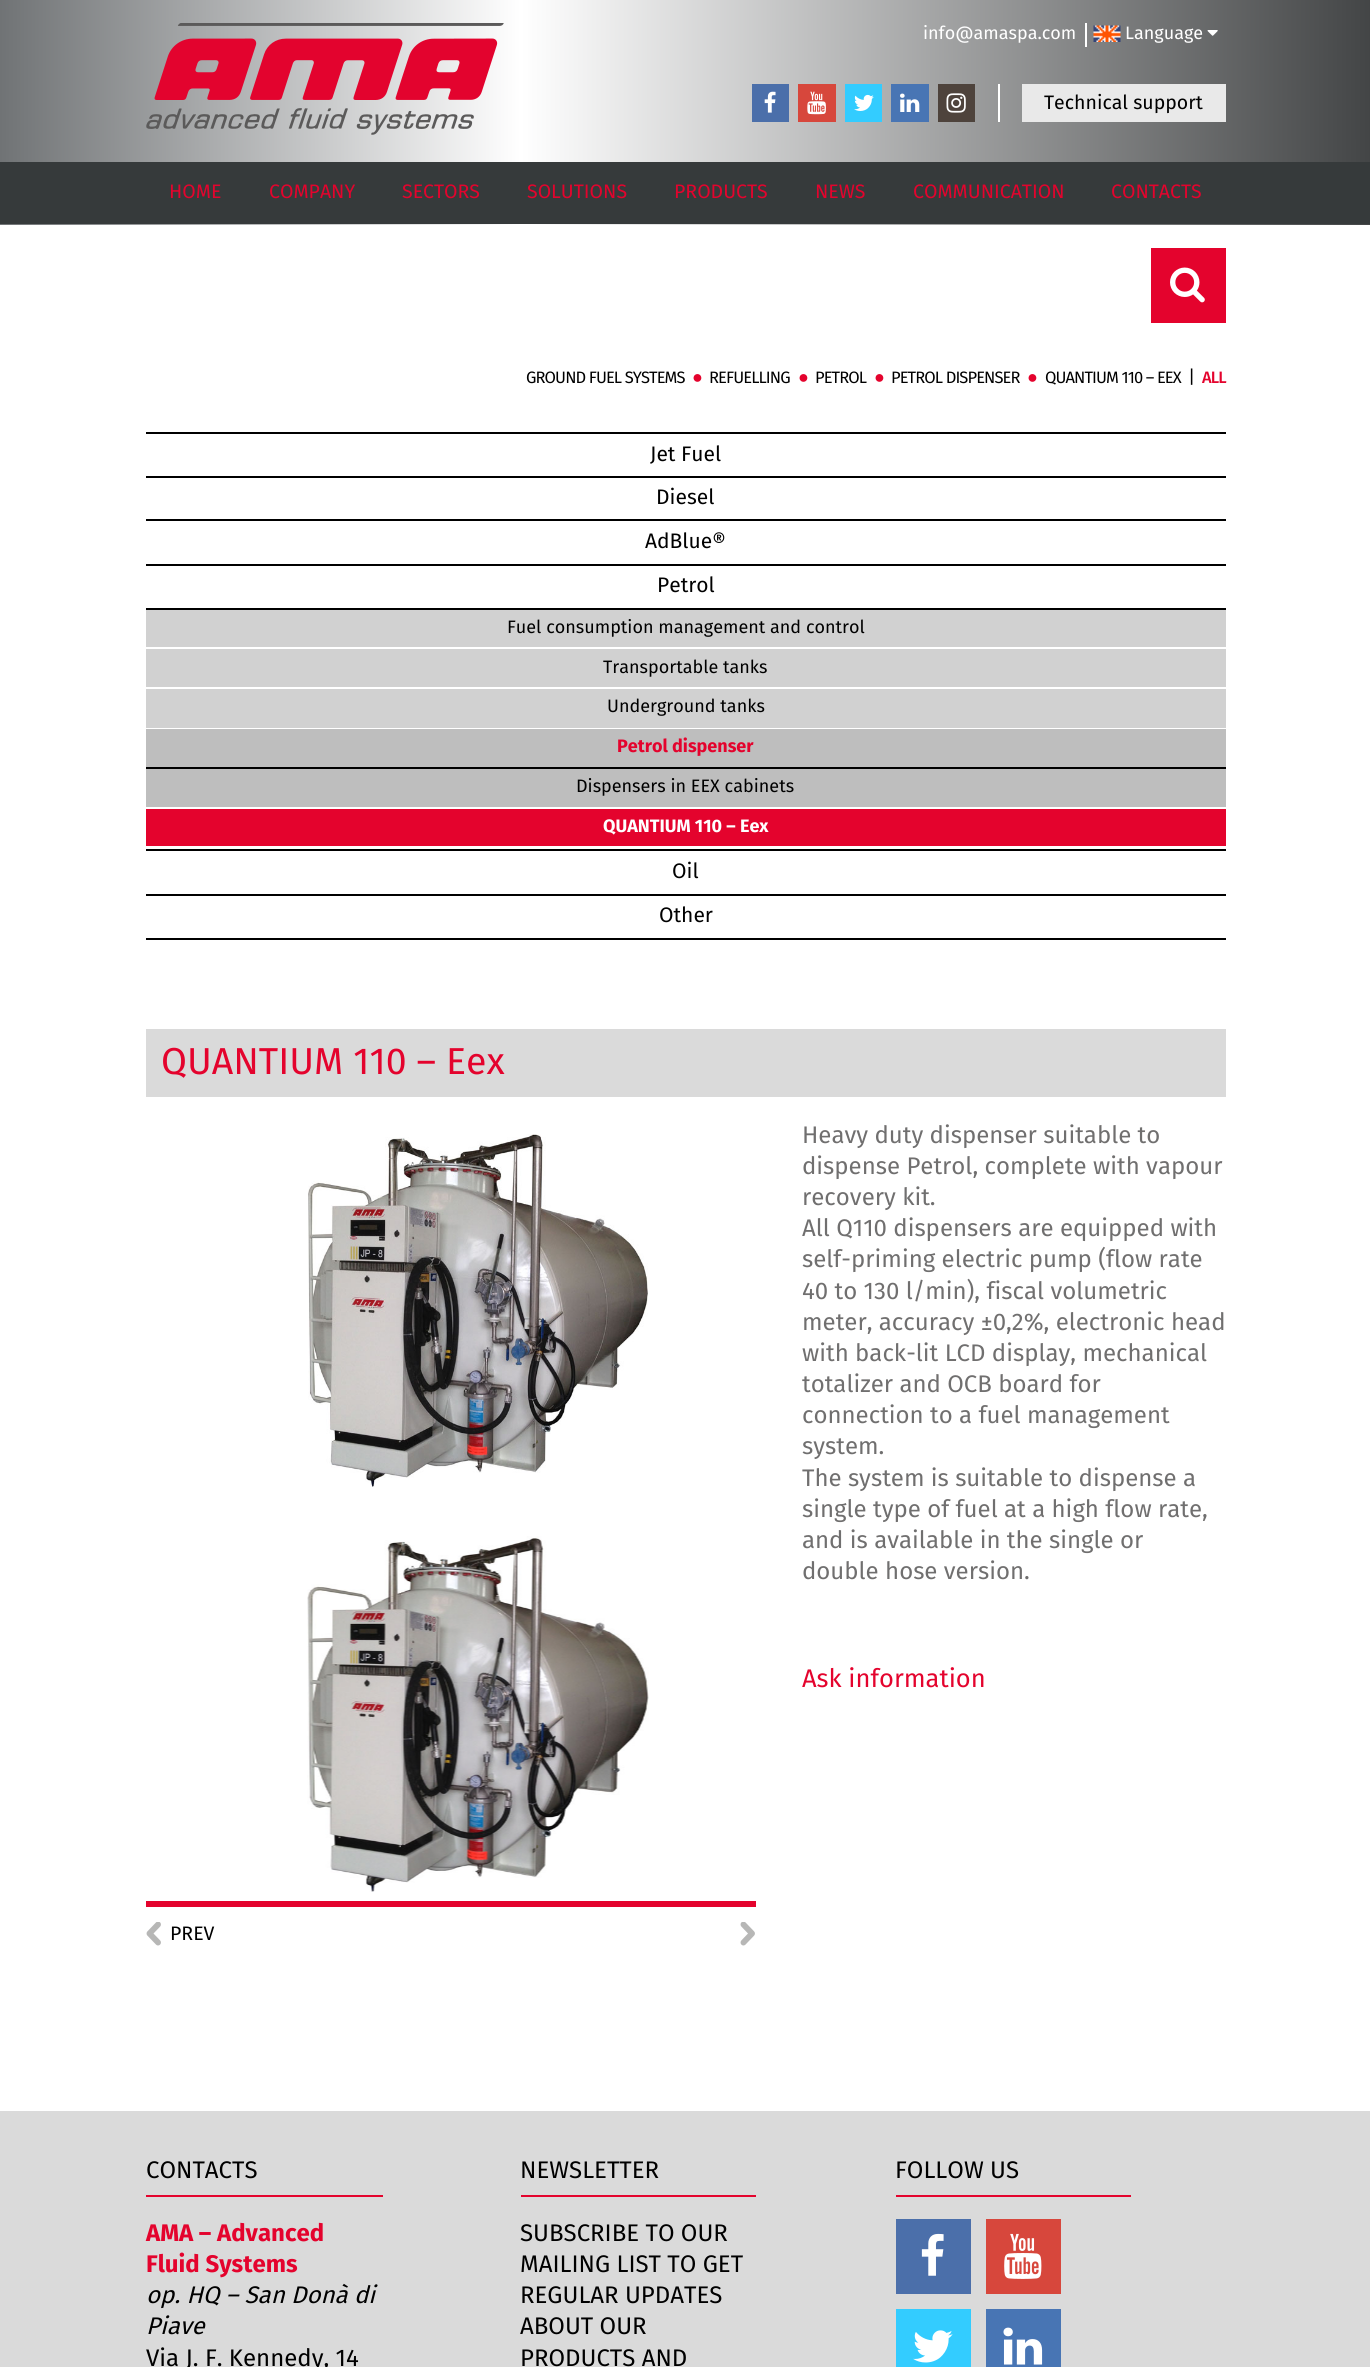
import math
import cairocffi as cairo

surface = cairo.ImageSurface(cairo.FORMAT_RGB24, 1370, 2367)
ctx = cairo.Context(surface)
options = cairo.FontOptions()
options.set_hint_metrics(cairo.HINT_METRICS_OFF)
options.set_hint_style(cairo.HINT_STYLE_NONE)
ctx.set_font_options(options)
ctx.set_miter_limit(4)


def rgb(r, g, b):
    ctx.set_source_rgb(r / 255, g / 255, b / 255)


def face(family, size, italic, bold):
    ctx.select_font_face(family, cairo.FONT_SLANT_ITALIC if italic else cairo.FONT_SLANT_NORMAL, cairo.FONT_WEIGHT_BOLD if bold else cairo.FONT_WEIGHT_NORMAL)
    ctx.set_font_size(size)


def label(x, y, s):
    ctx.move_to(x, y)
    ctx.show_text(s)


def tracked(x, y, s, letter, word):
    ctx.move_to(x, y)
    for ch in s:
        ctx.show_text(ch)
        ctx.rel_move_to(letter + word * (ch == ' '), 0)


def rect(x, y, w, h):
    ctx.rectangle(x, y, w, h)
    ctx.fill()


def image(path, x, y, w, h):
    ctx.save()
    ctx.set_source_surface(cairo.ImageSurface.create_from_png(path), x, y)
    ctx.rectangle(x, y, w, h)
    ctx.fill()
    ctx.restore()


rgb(255, 255, 255)
ctx.paint()
gradient = cairo.LinearGradient(0, 113, 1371, 112)
gradient.add_color_stop_rgba(0, 0.439, 0.451, 0.459, 1)
gradient.add_color_stop_rgba(0.38, 1, 1, 1, 1)
gradient.add_color_stop_rgba(1, 0.263, 0.271, 0.275, 1)
ctx.set_source(gradient)
rect(0, 0, 1370, 225)
image('image0.png', 146, 23, 358, 112)
rgb(255, 255, 255)
rect(1085, 23, 2, 24)
face('Fira Sans', 18, 0, 0)
label(923, 39, 'info@amaspa.com')
image('image1.png', 1093, 25, 28, 17)
label(1125, 39, 'Language')
image('image2.png', 1207, 30, 11, 6)
rgb(75, 111, 170)
rect(752, 84, 37, 38)
image('image3.png', 764, 91, 12, 22)
rgb(215, 71, 60)
rect(798, 84, 38, 38)
image('image4.png', 807, 91, 19, 24)
rgb(51, 204, 255)
rect(845, 84, 37, 38)
image('image5.png', 854, 94, 20, 17)
rgb(72, 117, 180)
rect(891, 84, 38, 38)
image('image6.png', 900, 93, 20, 19)
rgb(78, 67, 60)
rect(938, 84, 37, 38)
image('image7.png', 946, 93, 20, 20)
rgb(255, 255, 255)
rect(998, 84, 2, 38)
rgb(233, 233, 233)
rect(1022, 84, 204, 38)
face('Fira Sans', 19.5, 0, 0)
rgb(0, 0, 0)
label(1044, 109, 'Technical support')
rgb(54, 58, 59)
rect(0, 162, 1370, 62)
rgb(228, 3, 45)
label(169, 198, 'HOME')
label(269, 198, 'COMPANY')
label(402, 198, 'SECTORS')
label(527, 198, 'SOLUTIONS')
label(674, 198, 'PRODUCTS')
label(815, 198, 'NEWS')
label(913, 198, 'COMMUNICATION')
label(1111, 198, 'CONTACTS')
rect(1151, 248, 75, 75)
image('image8.png', 1170, 267, 35, 36)
face('Fira Sans', 16.5, 0, 0)
rgb(0, 0, 0)
tracked(526, 383, 'GROUND FUEL SYSTEMS', -0.9, 0)
face('Liberation Sans', 18, 0, 0)
rgb(228, 3, 45)
tracked(692, 383, '●', -0.9, 0)
face('Fira Sans', 16.5, 0, 0)
rgb(0, 0, 0)
tracked(709, 383, 'REFUELLING', -0.9, 0)
face('Liberation Sans', 18, 0, 0)
rgb(228, 3, 45)
tracked(798, 383, '●', -0.9, 0)
face('Fira Sans', 16.5, 0, 0)
rgb(0, 0, 0)
tracked(815, 383, 'PETROL', -0.9, 0)
face('Liberation Sans', 18, 0, 0)
rgb(228, 3, 45)
tracked(874, 383, '●', -0.9, 0)
face('Fira Sans', 16.5, 0, 0)
rgb(0, 0, 0)
tracked(891, 383, 'PETROL DISPENSER', -0.9, 0)
face('Liberation Sans', 18, 0, 0)
rgb(228, 3, 45)
tracked(1027, 383, '●', -0.9, 0)
face('Fira Sans', 16.5, 0, 0)
rgb(0, 0, 0)
tracked(1045, 383, 'QUANTIUM 110 – EEX', -0.9, 0)
face('Fira Sans', 18, 0, 0)
tracked(1188, 383, '|', -0.9, 0)
face('Fira Sans Medium', 16.5, 0, 0)
rgb(228, 3, 45)
tracked(1202, 383, 'ALL', -0.9, 0)
rgb(0, 0, 0)
rect(146, 432, 1080, 2)
rect(146, 476, 1080, 2)
face('Fira Sans', 21, 0, 0)
label(650, 461, 'Jet Fuel')
rect(146, 519, 1080, 2)
label(656, 504, 'Diesel')
rect(146, 564, 1080, 2)
label(645, 548, 'AdBlue®')
rect(146, 849, 1080, 2)
label(657, 592, 'Petrol')
rgb(209, 209, 209)
rect(146, 610, 1080, 118)
rgb(0, 0, 0)
rect(146, 608, 1080, 2)
rgb(255, 255, 255)
rect(146, 647, 1080, 2)
face('Fira Sans', 18, 0, 0)
rgb(0, 0, 0)
label(507, 633, 'Fuel consumption management and control')
rgb(255, 255, 255)
rect(146, 687, 1080, 2)
rgb(0, 0, 0)
label(603, 673, 'Transportable tanks')
label(607, 712, 'Underground tanks')
rgb(190, 190, 190)
rect(146, 729, 1080, 78)
face('Fira Sans', 18, 0, 1)
rgb(228, 3, 45)
label(617, 752, 'Petrol dispenser')
rgb(0, 0, 0)
rect(146, 767, 1080, 2)
face('Fira Sans', 18, 0, 0)
label(576, 792, 'Dispensers in EEX cabinets')
rgb(228, 3, 45)
rect(146, 809, 1080, 37)
face('Fira Sans', 18, 0, 1)
rgb(255, 255, 255)
label(603, 832, 'QUANTIUM 110 – Eex')
rgb(0, 0, 0)
rect(146, 894, 1080, 2)
face('Fira Sans', 21, 0, 0)
label(672, 878, 'Oil')
rect(146, 938, 1080, 2)
label(659, 922, 'Other')
rgb(218, 218, 218)
rect(146, 1029, 1080, 68)
face('Fira Sans', 37.5, 0, 0)
rgb(228, 3, 45)
label(161, 1074, 'QUANTIUM 110 – Eex')
face('Fira Sans', 24, 0, 0)
rgb(112, 111, 111)
label(802, 1143, 'Heavy duty dispenser suitable to')
label(802, 1174, 'dispense Petrol, complete with vapour')
label(802, 1205, 'recovery kit.')
label(802, 1236, 'All Q110 dispensers are equipped with')
label(802, 1267, 'self-priming electric pump (flow rate')
label(802, 1299, '40 to 130 l/min), fiscal volumetric')
label(802, 1330, 'meter, accuracy ±0,2%, electronic head')
label(802, 1361, 'with back-lit LCD display, mechanical')
label(802, 1392, 'totalizer and OCB board for')
label(802, 1423, 'connection to a fuel management')
label(802, 1454, 'system.')
label(802, 1486, 'The system is suitable to dispense a')
label(802, 1517, 'single type of fuel at a high flow rate,')
label(802, 1548, 'and is available in the single or')
label(802, 1579, 'double hose version.')
face('Fira Sans', 25.5, 0, 0)
rgb(228, 3, 45)
label(802, 1687, 'Ask information')
image('image9.png', 308, 1134, 340, 353)
image('image10.png', 307, 1536, 342, 356)
rect(146, 1901, 610, 6)
image('image11.png', 146, 1922, 15, 24)
face('Fira Sans', 19.5, 0, 0)
rgb(0, 0, 0)
label(170, 1940, 'PREV')
image('image12.png', 740, 1922, 15, 24)
rgb(218, 218, 218)
rect(0, 2111, 1370, 256)
face('Fira Sans', 24, 0, 0)
rgb(0, 0, 0)
label(146, 2178, 'CONTACTS')
rgb(228, 3, 45)
rect(146, 2195, 237, 2)
face('Fira Sans', 24, 0, 1)
label(146, 2241, 'AMA – Advanced')
label(146, 2272, 'Fluid Systems')
face('Fira Sans', 24, 1, 0)
rgb(0, 0, 0)
label(146, 2303, 'op. HQ – San Donà di')
label(146, 2334, 'Piave')
face('Fira Sans', 24, 0, 0)
label(146, 2366, 'Via J. F. Kennedy, 14')
label(520, 2178, 'NEWSLETTER')
rgb(228, 3, 45)
rect(521, 2195, 235, 2)
rgb(0, 0, 0)
label(520, 2241, 'SUBSCRIBE TO OUR')
label(520, 2272, 'MAILING LIST TO GET')
label(520, 2303, 'REGULAR UPDATES')
label(520, 2334, 'ABOUT OUR')
label(520, 2366, 'PRODUCTS AND')
label(895, 2178, 'FOLLOW US')
rgb(228, 3, 45)
rect(896, 2195, 235, 2)
rgb(75, 111, 170)
rect(896, 2219, 75, 75)
image('image13.png', 921, 2233, 23, 43)
rgb(215, 71, 60)
rect(986, 2219, 75, 75)
image('image14.png', 1004, 2233, 38, 46)
rgb(51, 204, 255)
rect(896, 2309, 75, 58)
image('image15.png', 913, 2330, 40, 33)
rgb(72, 117, 180)
rect(986, 2309, 75, 58)
image('image16.png', 1003, 2327, 40, 38)
surface.write_to_png('render.png')
